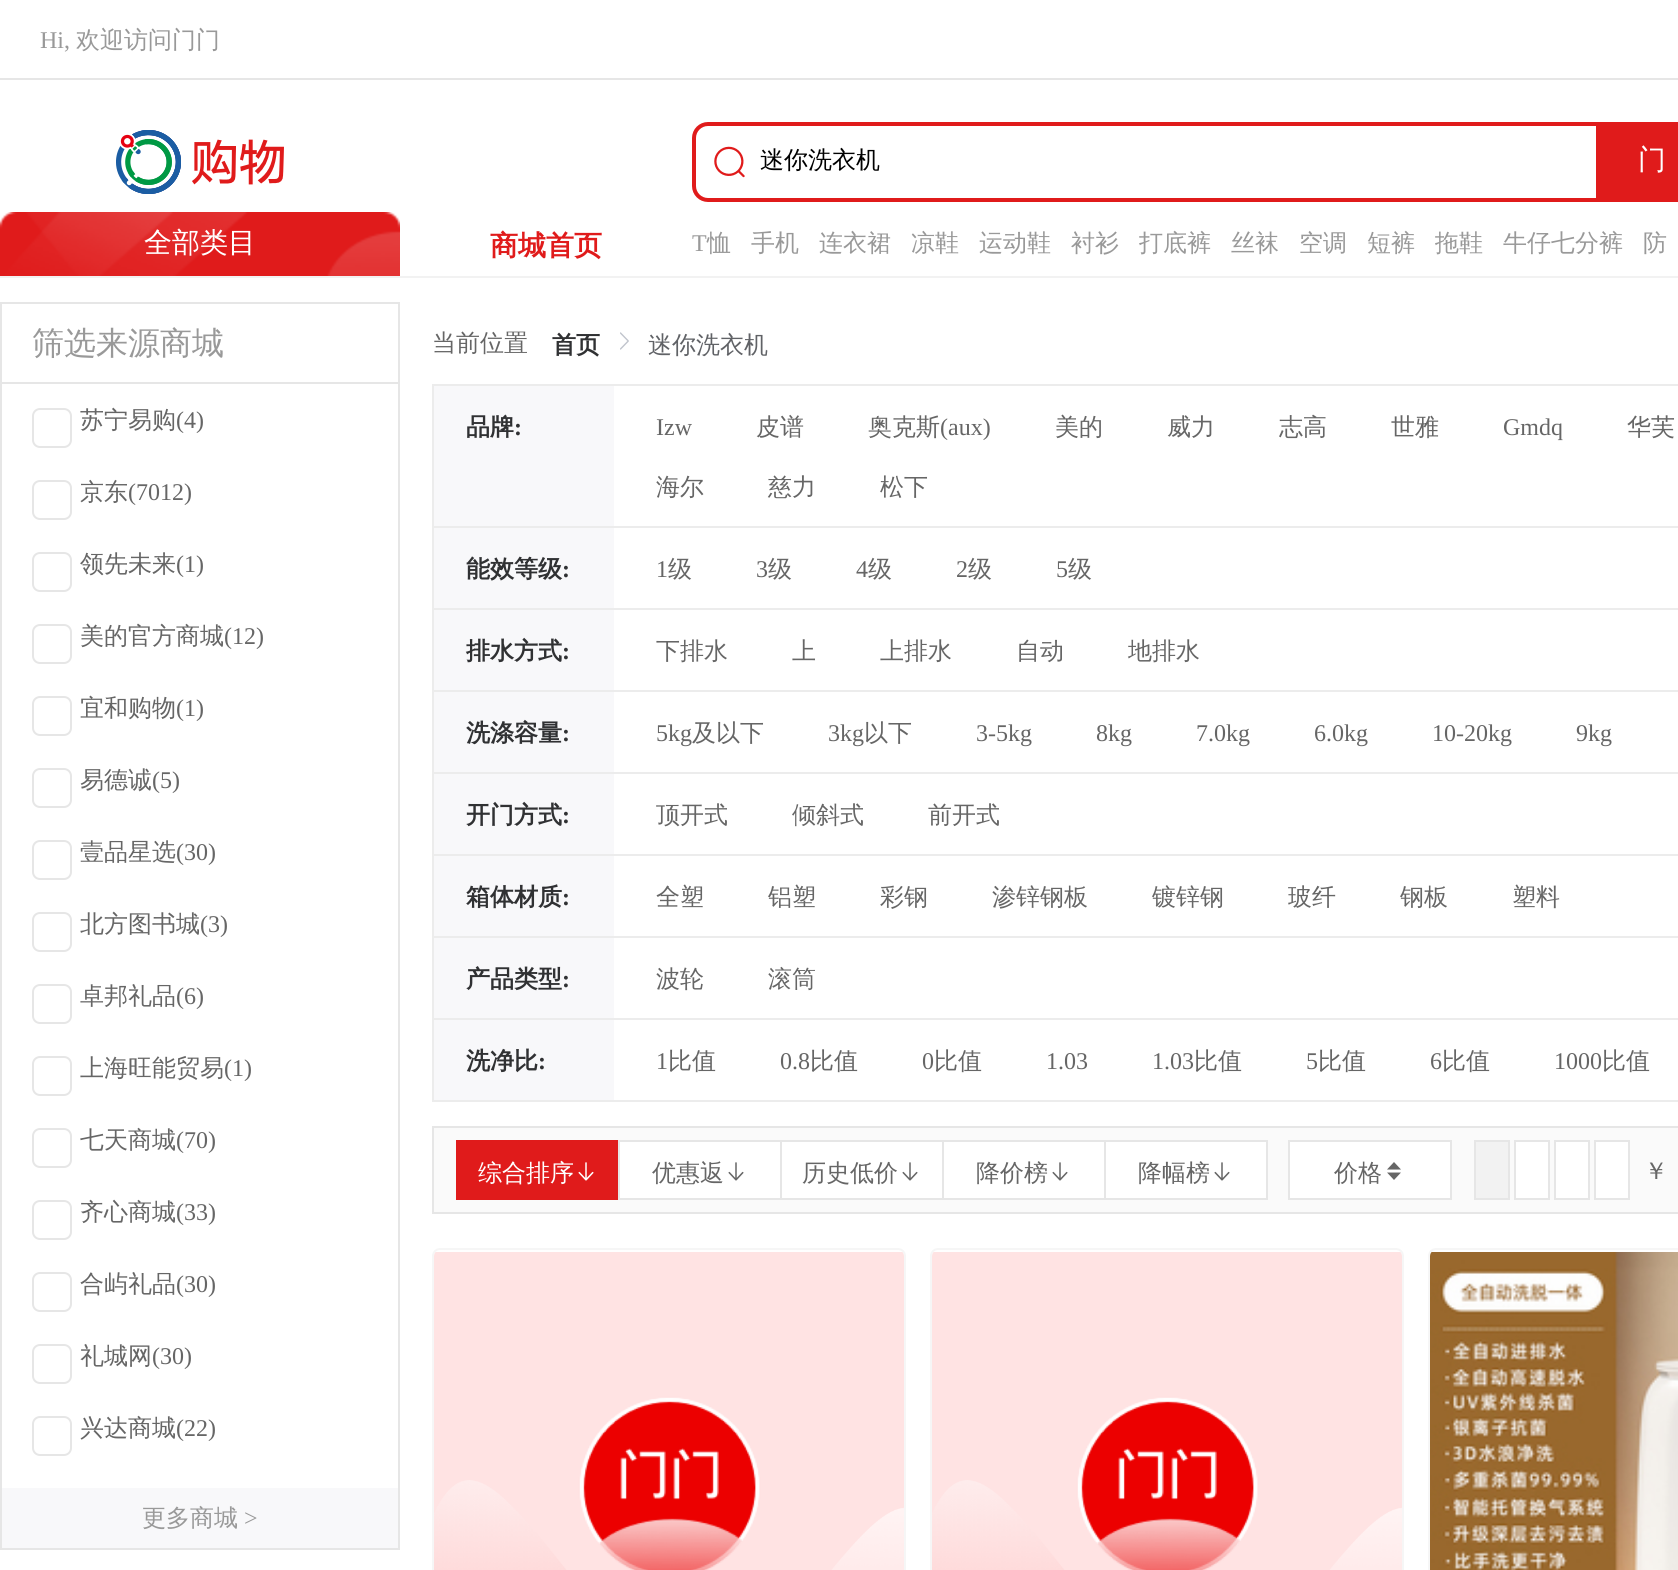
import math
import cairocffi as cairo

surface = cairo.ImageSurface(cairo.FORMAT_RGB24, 1678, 1570)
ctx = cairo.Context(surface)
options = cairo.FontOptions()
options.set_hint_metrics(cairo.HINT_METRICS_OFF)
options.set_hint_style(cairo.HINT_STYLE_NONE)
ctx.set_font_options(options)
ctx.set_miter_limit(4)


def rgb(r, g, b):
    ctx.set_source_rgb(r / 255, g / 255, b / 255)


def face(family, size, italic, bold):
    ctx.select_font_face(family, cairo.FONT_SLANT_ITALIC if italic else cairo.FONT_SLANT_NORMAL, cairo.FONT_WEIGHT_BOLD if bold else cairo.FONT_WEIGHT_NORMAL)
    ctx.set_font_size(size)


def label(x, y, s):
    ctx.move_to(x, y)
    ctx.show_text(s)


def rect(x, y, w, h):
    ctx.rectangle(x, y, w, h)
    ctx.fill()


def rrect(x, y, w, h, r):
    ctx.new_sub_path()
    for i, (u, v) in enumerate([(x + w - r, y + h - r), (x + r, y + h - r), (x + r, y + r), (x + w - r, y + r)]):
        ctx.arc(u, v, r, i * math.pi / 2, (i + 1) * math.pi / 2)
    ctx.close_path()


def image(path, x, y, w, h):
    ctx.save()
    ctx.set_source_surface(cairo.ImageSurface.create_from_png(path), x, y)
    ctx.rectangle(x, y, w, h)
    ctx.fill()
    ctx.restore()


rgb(255, 255, 255)
ctx.paint()
rgb(242, 242, 242)
rect(0, 276, 1678, 2)
rgb(230, 230, 230)
rect(0, 78, 1678, 2)
face('Liberation Serif', 24, 0, 0)
rgb(153, 153, 153)
label(40, 48, 'Hi,')
face('WenQuanYi Zen Hei Medium', 24, 0, 0)
label(76, 48, '欢迎访问门门')
image('image0.png', 116, 130, 168, 64)
image('image1.png', 0, 212, 400, 64)
face('WenQuanYi Zen Hei Medium', 28, 0, 0)
rgb(255, 255, 255)
label(144, 252, '全部类目')
face('WenQuanYi Zen Hei', 28, 0, 1)
rgb(224, 27, 27)
label(490, 255, '商城首页')
rrect(694, 124, 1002, 76, 14)
ctx.set_line_width(4)
ctx.stroke()
image('image2.png', 714, 146, 31, 32)
face('WenQuanYi Zen Hei Medium', 24, 0, 0)
rgb(0, 0, 0)
label(760, 168, '迷你洗衣机')
rgb(224, 27, 27)
rect(1596, 126, 82, 72)
face('WenQuanYi Zen Hei Medium', 28, 0, 0)
rgb(255, 255, 255)
label(1638, 169, '门')
face('Liberation Serif', 24, 0, 0)
rgb(153, 153, 153)
label(692, 251, 'T')
face('WenQuanYi Zen Hei Medium', 24, 0, 0)
label(707, 251, '恤')
label(751, 251, '手机')
label(819, 251, '连衣裙')
label(911, 251, '凉鞋')
label(979, 251, '运动鞋')
label(1071, 251, '衬衫')
label(1139, 251, '打底裤')
label(1231, 251, '丝袜')
label(1299, 251, '空调')
label(1367, 251, '短裤')
label(1435, 251, '拖鞋')
label(1503, 251, '牛仔七分裤')
label(1643, 251, '防')
ctx.rectangle(1, 303, 398, 1246)
rgb(230, 230, 230)
ctx.set_line_width(2)
ctx.stroke()
rect(2, 382, 396, 2)
face('WenQuanYi Zen Hei Medium', 32, 0, 0)
rgb(153, 153, 153)
label(32, 354, '筛选来源商城')
rrect(33, 409, 38, 38, 7)
rgb(230, 230, 230)
ctx.stroke()
face('WenQuanYi Zen Hei Medium', 24, 0, 0)
rgb(102, 102, 102)
label(80, 428, '苏宁易购')
face('Liberation Serif', 24, 0, 0)
label(176, 428, '(4)')
rrect(33, 481, 38, 38, 7)
rgb(230, 230, 230)
ctx.stroke()
face('WenQuanYi Zen Hei Medium', 24, 0, 0)
rgb(102, 102, 102)
label(80, 500, '京东')
face('Liberation Serif', 24, 0, 0)
label(128, 500, '(7012)')
rrect(33, 553, 38, 38, 7)
rgb(230, 230, 230)
ctx.stroke()
face('WenQuanYi Zen Hei Medium', 24, 0, 0)
rgb(102, 102, 102)
label(80, 572, '领先未来')
face('Liberation Serif', 24, 0, 0)
label(176, 572, '(1)')
rrect(33, 625, 38, 38, 7)
rgb(230, 230, 230)
ctx.stroke()
face('WenQuanYi Zen Hei Medium', 24, 0, 0)
rgb(102, 102, 102)
label(80, 644, '美的官方商城')
face('Liberation Serif', 24, 0, 0)
label(224, 644, '(12)')
rrect(33, 697, 38, 38, 7)
rgb(230, 230, 230)
ctx.stroke()
face('WenQuanYi Zen Hei Medium', 24, 0, 0)
rgb(102, 102, 102)
label(80, 716, '宜和购物')
face('Liberation Serif', 24, 0, 0)
label(176, 716, '(1)')
rrect(33, 769, 38, 38, 7)
rgb(230, 230, 230)
ctx.stroke()
face('WenQuanYi Zen Hei Medium', 24, 0, 0)
rgb(102, 102, 102)
label(80, 788, '易德诚')
face('Liberation Serif', 24, 0, 0)
label(152, 788, '(5)')
rrect(33, 841, 38, 38, 7)
rgb(230, 230, 230)
ctx.stroke()
face('WenQuanYi Zen Hei Medium', 24, 0, 0)
rgb(102, 102, 102)
label(80, 860, '壹品星选')
face('Liberation Serif', 24, 0, 0)
label(176, 860, '(30)')
rrect(33, 913, 38, 38, 7)
rgb(230, 230, 230)
ctx.stroke()
face('WenQuanYi Zen Hei Medium', 24, 0, 0)
rgb(102, 102, 102)
label(80, 932, '北方图书城')
face('Liberation Serif', 24, 0, 0)
label(200, 932, '(3)')
rrect(33, 985, 38, 38, 7)
rgb(230, 230, 230)
ctx.stroke()
face('WenQuanYi Zen Hei Medium', 24, 0, 0)
rgb(102, 102, 102)
label(80, 1004, '卓邦礼品')
face('Liberation Serif', 24, 0, 0)
label(176, 1004, '(6)')
rrect(33, 1057, 38, 38, 7)
rgb(230, 230, 230)
ctx.stroke()
face('WenQuanYi Zen Hei Medium', 24, 0, 0)
rgb(102, 102, 102)
label(80, 1076, '上海旺能贸易')
face('Liberation Serif', 24, 0, 0)
label(224, 1076, '(1)')
rrect(33, 1129, 38, 38, 7)
rgb(230, 230, 230)
ctx.stroke()
face('WenQuanYi Zen Hei Medium', 24, 0, 0)
rgb(102, 102, 102)
label(80, 1148, '七天商城')
face('Liberation Serif', 24, 0, 0)
label(176, 1148, '(70)')
rrect(33, 1201, 38, 38, 7)
rgb(230, 230, 230)
ctx.stroke()
face('WenQuanYi Zen Hei Medium', 24, 0, 0)
rgb(102, 102, 102)
label(80, 1220, '齐心商城')
face('Liberation Serif', 24, 0, 0)
label(176, 1220, '(33)')
rrect(33, 1273, 38, 38, 7)
rgb(230, 230, 230)
ctx.stroke()
face('WenQuanYi Zen Hei Medium', 24, 0, 0)
rgb(102, 102, 102)
label(80, 1292, '合屿礼品')
face('Liberation Serif', 24, 0, 0)
label(176, 1292, '(30)')
rrect(33, 1345, 38, 38, 7)
rgb(230, 230, 230)
ctx.stroke()
face('WenQuanYi Zen Hei Medium', 24, 0, 0)
rgb(102, 102, 102)
label(80, 1364, '礼城网')
face('Liberation Serif', 24, 0, 0)
label(152, 1364, '(30)')
rrect(33, 1417, 38, 38, 7)
rgb(230, 230, 230)
ctx.stroke()
face('WenQuanYi Zen Hei Medium', 24, 0, 0)
rgb(102, 102, 102)
label(80, 1436, '兴达商城')
face('Liberation Serif', 24, 0, 0)
label(176, 1436, '(22)')
rgb(248, 248, 250)
rect(2, 1488, 396, 60)
face('WenQuanYi Zen Hei Medium', 24, 0, 0)
rgb(153, 153, 153)
label(142, 1526, '更多商城')
face('Liberation Serif', 24, 0, 0)
label(244, 1526, '>')
face('WenQuanYi Zen Hei Medium', 24, 0, 0)
rgb(102, 102, 102)
label(432, 351, '当前位置')
face('WenQuanYi Zen Hei', 24, 0, 1)
rgb(48, 49, 51)
label(552, 353, '首页')
image('image3.png', 620, 332, 9, 18)
face('WenQuanYi Zen Hei Medium', 24, 0, 0)
rgb(96, 98, 102)
label(648, 353, '迷你洗衣机')
ctx.rectangle(433, 385, 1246, 716)
rgb(236, 236, 236)
ctx.stroke()
rect(434, 526, 1244, 2)
rgb(248, 248, 250)
rect(434, 386, 180, 140)
face('WenQuanYi Zen Hei', 24, 0, 1)
rgb(48, 49, 51)
label(466, 435, '品牌')
face('Liberation Serif', 24, 0, 1)
label(514, 435, ':')
face('Liberation Serif', 24, 0, 0)
rgb(102, 102, 102)
label(656, 435, 'Izw')
face('WenQuanYi Zen Hei Medium', 24, 0, 0)
label(756, 435, '皮谱')
label(868, 435, '奥克斯')
face('Liberation Serif', 24, 0, 0)
label(940, 435, '(aux)')
face('WenQuanYi Zen Hei Medium', 24, 0, 0)
label(1055, 435, '美的')
label(1167, 435, '威力')
label(1279, 435, '志高')
label(1391, 435, '世雅')
face('Liberation Serif', 24, 0, 0)
label(1503, 435, 'Gmdq')
face('WenQuanYi Zen Hei Medium', 24, 0, 0)
label(1627, 435, '华芙')
label(656, 495, '海尔')
label(768, 495, '慈力')
label(880, 495, '松下')
rgb(236, 236, 236)
rect(434, 608, 1244, 2)
rgb(248, 248, 250)
rect(434, 528, 180, 80)
face('WenQuanYi Zen Hei', 24, 0, 1)
rgb(48, 49, 51)
label(466, 577, '能效等级')
face('Liberation Serif', 24, 0, 1)
label(562, 577, ':')
face('Liberation Serif', 24, 0, 0)
rgb(102, 102, 102)
label(656, 577, '1')
face('WenQuanYi Zen Hei Medium', 24, 0, 0)
label(668, 577, '级')
face('Liberation Serif', 24, 0, 0)
label(756, 577, '3')
face('WenQuanYi Zen Hei Medium', 24, 0, 0)
label(768, 577, '级')
face('Liberation Serif', 24, 0, 0)
label(856, 577, '4')
face('WenQuanYi Zen Hei Medium', 24, 0, 0)
label(868, 577, '级')
face('Liberation Serif', 24, 0, 0)
label(956, 577, '2')
face('WenQuanYi Zen Hei Medium', 24, 0, 0)
label(968, 577, '级')
face('Liberation Serif', 24, 0, 0)
label(1056, 577, '5')
face('WenQuanYi Zen Hei Medium', 24, 0, 0)
label(1068, 577, '级')
rgb(236, 236, 236)
rect(434, 690, 1244, 2)
rgb(248, 248, 250)
rect(434, 610, 180, 80)
face('WenQuanYi Zen Hei', 24, 0, 1)
rgb(48, 49, 51)
label(466, 659, '排水方式')
face('Liberation Serif', 24, 0, 1)
label(562, 659, ':')
face('WenQuanYi Zen Hei Medium', 24, 0, 0)
rgb(102, 102, 102)
label(656, 659, '下排水')
label(792, 659, '上')
label(880, 659, '上排水')
label(1016, 659, '自动')
label(1128, 659, '地排水')
rgb(236, 236, 236)
rect(434, 772, 1244, 2)
rgb(248, 248, 250)
rect(434, 692, 180, 80)
face('WenQuanYi Zen Hei', 24, 0, 1)
rgb(48, 49, 51)
label(466, 741, '洗涤容量')
face('Liberation Serif', 24, 0, 1)
label(562, 741, ':')
face('Liberation Serif', 24, 0, 0)
rgb(102, 102, 102)
label(656, 741, '5kg')
face('WenQuanYi Zen Hei Medium', 24, 0, 0)
label(692, 741, '及以下')
face('Liberation Serif', 24, 0, 0)
label(828, 741, '3kg')
face('WenQuanYi Zen Hei Medium', 24, 0, 0)
label(864, 741, '以下')
face('Liberation Serif', 24, 0, 0)
label(976, 741, '3-5kg')
label(1096, 741, '8kg')
label(1196, 741, '7.0kg')
label(1314, 741, '6.0kg')
label(1432, 741, '10-20kg')
label(1576, 741, '9kg')
rgb(236, 236, 236)
rect(434, 854, 1244, 2)
rgb(248, 248, 250)
rect(434, 774, 180, 80)
face('WenQuanYi Zen Hei', 24, 0, 1)
rgb(48, 49, 51)
label(466, 823, '开门方式')
face('Liberation Serif', 24, 0, 1)
label(562, 823, ':')
face('WenQuanYi Zen Hei Medium', 24, 0, 0)
rgb(102, 102, 102)
label(656, 823, '顶开式')
label(792, 823, '倾斜式')
label(928, 823, '前开式')
rgb(236, 236, 236)
rect(434, 936, 1244, 2)
rgb(248, 248, 250)
rect(434, 856, 180, 80)
face('WenQuanYi Zen Hei', 24, 0, 1)
rgb(48, 49, 51)
label(466, 905, '箱体材质')
face('Liberation Serif', 24, 0, 1)
label(562, 905, ':')
face('WenQuanYi Zen Hei Medium', 24, 0, 0)
rgb(102, 102, 102)
label(656, 905, '全塑')
label(768, 905, '铝塑')
label(880, 905, '彩钢')
label(992, 905, '渗锌钢板')
label(1152, 905, '镀锌钢')
label(1288, 905, '玻纤')
label(1400, 905, '钢板')
label(1512, 905, '塑料')
rgb(236, 236, 236)
rect(434, 1018, 1244, 2)
rgb(248, 248, 250)
rect(434, 938, 180, 80)
face('WenQuanYi Zen Hei', 24, 0, 1)
rgb(48, 49, 51)
label(466, 987, '产品类型')
face('Liberation Serif', 24, 0, 1)
label(562, 987, ':')
face('WenQuanYi Zen Hei Medium', 24, 0, 0)
rgb(102, 102, 102)
label(656, 987, '波轮')
label(768, 987, '滚筒')
rgb(248, 248, 250)
rect(434, 1020, 180, 80)
face('WenQuanYi Zen Hei', 24, 0, 1)
rgb(48, 49, 51)
label(466, 1069, '洗净比')
face('Liberation Serif', 24, 0, 1)
label(538, 1069, ':')
face('Liberation Serif', 24, 0, 0)
rgb(102, 102, 102)
label(656, 1069, '1')
face('WenQuanYi Zen Hei Medium', 24, 0, 0)
label(668, 1069, '比值')
face('Liberation Serif', 24, 0, 0)
label(780, 1069, '0.8')
face('WenQuanYi Zen Hei Medium', 24, 0, 0)
label(810, 1069, '比值')
face('Liberation Serif', 24, 0, 0)
label(922, 1069, '0')
face('WenQuanYi Zen Hei Medium', 24, 0, 0)
label(934, 1069, '比值')
face('Liberation Serif', 24, 0, 0)
label(1046, 1069, '1.03')
label(1152, 1069, '1.03')
face('WenQuanYi Zen Hei Medium', 24, 0, 0)
label(1194, 1069, '比值')
face('Liberation Serif', 24, 0, 0)
label(1306, 1069, '5')
face('WenQuanYi Zen Hei Medium', 24, 0, 0)
label(1318, 1069, '比值')
face('Liberation Serif', 24, 0, 0)
label(1430, 1069, '6')
face('WenQuanYi Zen Hei Medium', 24, 0, 0)
label(1442, 1069, '比值')
face('Liberation Serif', 24, 0, 0)
label(1554, 1069, '1000')
face('WenQuanYi Zen Hei Medium', 24, 0, 0)
label(1602, 1069, '比值')
rgb(250, 250, 250)
ctx.rectangle(433, 1127, 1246, 86)
ctx.fill_preserve()
rgb(230, 230, 230)
ctx.stroke()
rgb(224, 27, 27)
rect(456, 1140, 162, 60)
rgb(255, 255, 255)
label(478, 1181, '综合排序')
image('image4.png', 578, 1162, 16, 19)
ctx.rectangle(619, 1141, 162, 58)
ctx.fill_preserve()
rgb(230, 230, 230)
ctx.stroke()
rgb(102, 102, 102)
label(652, 1181, '优惠返')
image('image5.png', 728, 1162, 16, 19)
rgb(255, 255, 255)
ctx.rectangle(781, 1141, 162, 58)
ctx.fill_preserve()
rgb(230, 230, 230)
ctx.stroke()
rgb(102, 102, 102)
label(802, 1181, '历史低价')
image('image5.png', 902, 1162, 16, 19)
rgb(255, 255, 255)
ctx.rectangle(943, 1141, 162, 58)
ctx.fill_preserve()
rgb(230, 230, 230)
ctx.stroke()
rgb(102, 102, 102)
label(976, 1181, '降价榜')
image('image5.png', 1052, 1162, 16, 19)
rgb(255, 255, 255)
ctx.rectangle(1105, 1141, 162, 58)
ctx.fill_preserve()
rgb(230, 230, 230)
ctx.stroke()
rgb(102, 102, 102)
label(1138, 1181, '降幅榜')
image('image5.png', 1214, 1162, 16, 19)
rgb(255, 255, 255)
ctx.rectangle(1289, 1141, 162, 58)
ctx.fill_preserve()
rgb(230, 230, 230)
ctx.stroke()
rgb(102, 102, 102)
label(1334, 1181, '价格')
ctx.new_path()
ctx.move_to(1394, 1162)
ctx.line_to(1401, 1169.5)
ctx.line_to(1387, 1169.5)
ctx.close_path()
ctx.move_to(1387, 1172.5)
ctx.line_to(1401, 1172.5)
ctx.line_to(1394, 1180)
ctx.close_path()
ctx.fill()
rgb(242, 242, 242)
ctx.rectangle(1475, 1141, 34, 58)
ctx.fill_preserve()
rgb(230, 230, 230)
ctx.stroke()
rgb(255, 255, 255)
ctx.rectangle(1515, 1141, 34, 58)
ctx.fill_preserve()
rgb(230, 230, 230)
ctx.stroke()
rgb(255, 255, 255)
ctx.rectangle(1555, 1141, 34, 58)
ctx.fill_preserve()
rgb(230, 230, 230)
ctx.stroke()
rgb(255, 255, 255)
ctx.rectangle(1595, 1141, 34, 58)
ctx.fill_preserve()
rgb(230, 230, 230)
ctx.stroke()
rgb(102, 102, 102)
label(1644, 1179, '￥')
rrect(433, 1249, 472, 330, 7)
rgb(246, 246, 246)
ctx.stroke()
image('image6.png', 434, 1252, 470, 318)
rrect(931, 1249, 472, 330, 7)
ctx.stroke()
image('image7.png', 932, 1252, 470, 318)
rrect(1429, 1249, 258, 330, 7)
ctx.stroke()
image('image8.png', 1430, 1252, 248, 318)
surface.write_to_png('render.png')
